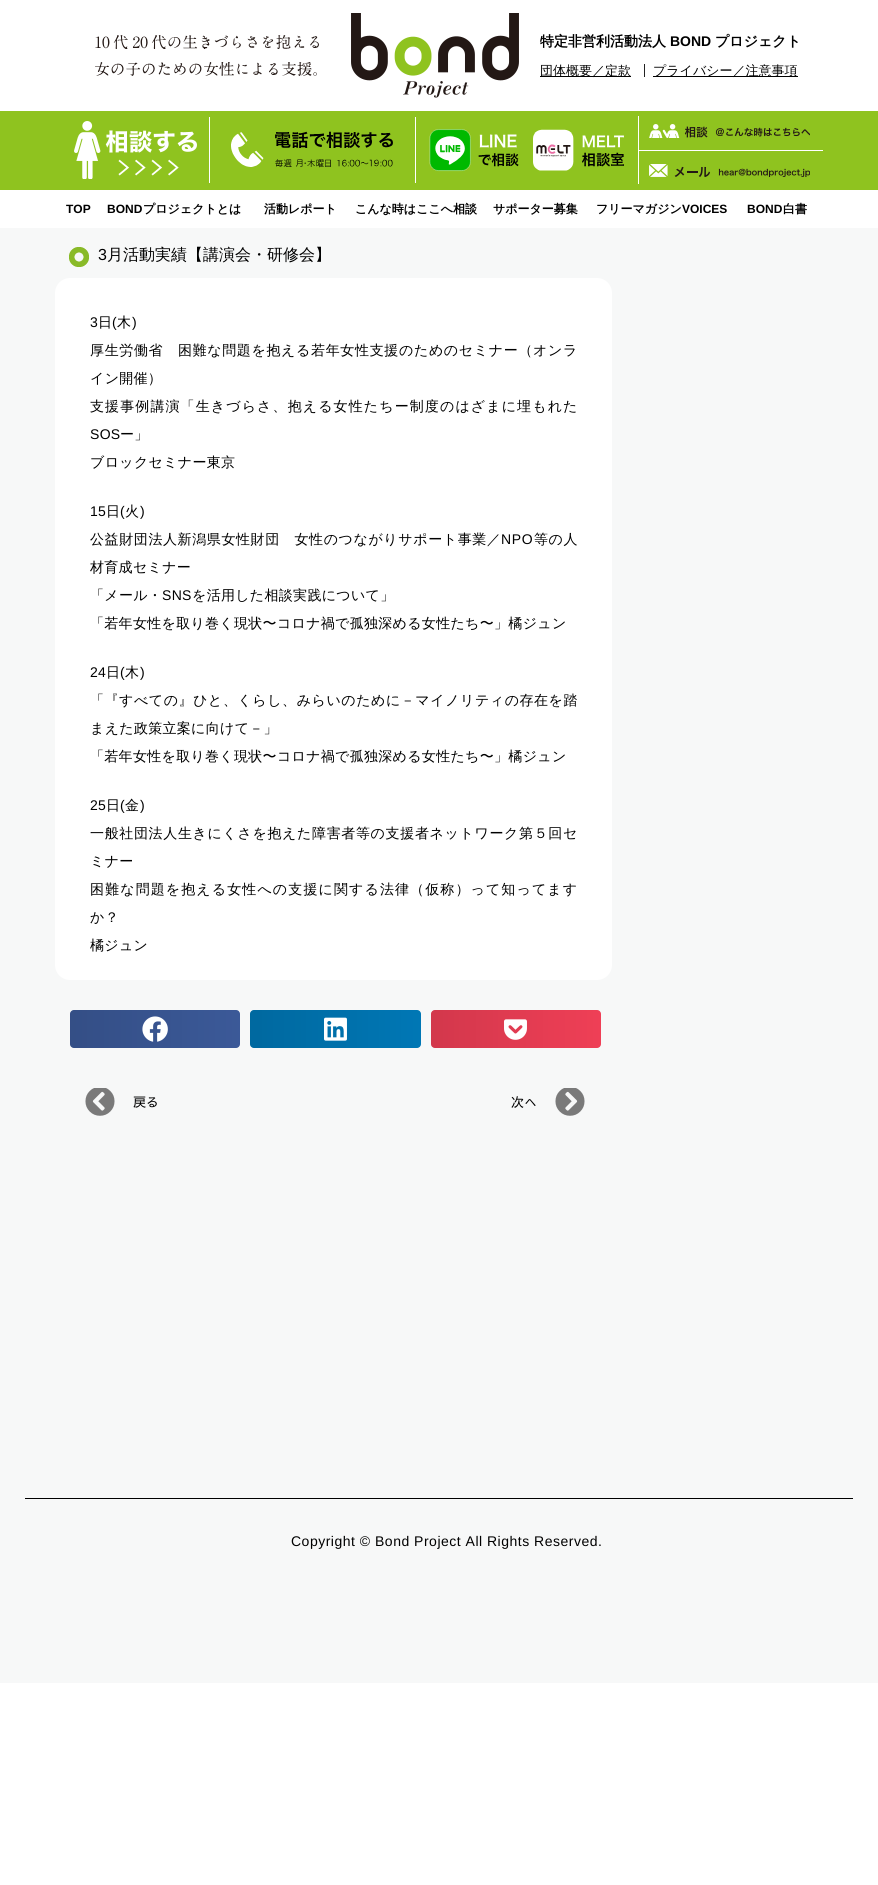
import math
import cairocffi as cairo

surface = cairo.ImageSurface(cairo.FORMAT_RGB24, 878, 1885)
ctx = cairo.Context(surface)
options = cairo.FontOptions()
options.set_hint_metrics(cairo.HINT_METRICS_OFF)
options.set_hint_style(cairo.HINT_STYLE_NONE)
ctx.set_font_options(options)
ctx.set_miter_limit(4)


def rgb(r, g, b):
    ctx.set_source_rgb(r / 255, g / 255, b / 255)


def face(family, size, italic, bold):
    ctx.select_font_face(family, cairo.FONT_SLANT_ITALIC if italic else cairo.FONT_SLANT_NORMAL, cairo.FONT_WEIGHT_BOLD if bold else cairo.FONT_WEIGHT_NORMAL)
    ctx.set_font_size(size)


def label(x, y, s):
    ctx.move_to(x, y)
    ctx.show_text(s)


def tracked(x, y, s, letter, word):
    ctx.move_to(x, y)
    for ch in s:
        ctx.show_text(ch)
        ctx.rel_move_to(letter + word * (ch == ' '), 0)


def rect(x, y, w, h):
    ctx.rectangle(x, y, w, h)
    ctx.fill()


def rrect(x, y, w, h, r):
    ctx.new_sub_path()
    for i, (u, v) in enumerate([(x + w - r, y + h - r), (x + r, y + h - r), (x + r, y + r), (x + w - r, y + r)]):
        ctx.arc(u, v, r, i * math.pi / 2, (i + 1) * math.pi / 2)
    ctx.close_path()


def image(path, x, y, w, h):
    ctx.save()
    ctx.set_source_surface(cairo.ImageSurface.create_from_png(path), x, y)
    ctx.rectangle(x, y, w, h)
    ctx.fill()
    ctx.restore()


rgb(255, 255, 255)
ctx.paint()
image('image0.png', 95, 35, 224, 41)
image('image1.png', 351, 13, 168, 85)
face('WenQuanYi Zen Hei', 14, 0, 1)
rgb(0, 0, 0)
label(540, 46, '特定非営利活動法人')
face('Liberation Sans', 14, 0, 1)
label(670, 46, 'BOND')
face('WenQuanYi Zen Hei', 14, 0, 1)
label(715, 46, 'プロジェクト')
rgb(34, 34, 34)
rect(644, 64, 1, 13)
rgb(0, 0, 0)
rect(540, 76, 91, 1)
face('WenQuanYi Zen Hei Medium', 13, 0, 0)
label(540, 75, '団体概要／定款')
rect(653, 76, 145, 1)
label(653, 75, 'プライバシー／注意事項')
rgb(143, 195, 31)
rect(0, 111, 878, 79)
rgb(255, 255, 255)
rect(209, 117, 1, 66)
image('image2.png', 74, 121, 123, 58)
rect(415, 117, 1, 66)
image('image3.png', 231, 131, 162, 37)
rect(638, 116, 1, 68)
image('image4.png', 429, 129, 195, 43)
image('image5.png', 649, 124, 161, 14)
rect(639, 150, 184, 1)
image('image6.png', 649, 164, 161, 13)
face('Liberation Sans', 12, 0, 1)
rgb(0, 0, 0)
label(66, 213, 'TOP')
label(107, 213, 'BOND')
face('WenQuanYi Zen Hei', 12, 0, 1)
label(143, 213, 'プロジェクトとは')
label(264, 213, '活動レポート')
label(355, 213, 'こんな時はここへ相談')
label(493, 213, 'サポーター募集')
label(596, 213, 'フリーマガジン')
face('Liberation Sans', 12, 0, 1)
label(682, 213, 'VOICES')
label(747, 213, 'BOND')
face('WenQuanYi Zen Hei', 12, 0, 1)
label(783, 213, '白書')
rgb(247, 248, 248)
rect(0, 228, 878, 1455)
image('image7.png', 69, 247, 20, 20)
face('Liberation Sans', 16, 0, 0)
rgb(0, 0, 0)
label(98, 260, '3')
face('WenQuanYi Zen Hei Medium', 16, 0, 0)
label(107, 260, '月活動実績【講演会・研修会】')
rgb(255, 255, 255)
rrect(55, 278, 557, 702, 15)
ctx.fill()
face('Liberation Sans', 14, 0, 0)
rgb(0, 0, 0)
tracked(90, 327, '3', 0.3, 0)
face('WenQuanYi Zen Hei Medium', 14, 0, 0)
tracked(98, 327, '日', 0.3, 0)
face('Liberation Sans', 14, 0, 0)
tracked(112, 327, '(', 0.3, 0)
face('WenQuanYi Zen Hei Medium', 14, 0, 0)
tracked(117, 327, '木', 0.3, 0)
face('Liberation Sans', 14, 0, 0)
tracked(132, 327, ')', 0.3, 0)
face('WenQuanYi Zen Hei Medium', 14, 0, 0)
tracked(90, 355, '厚生労働省　困難な問題を抱える若年女性支援のためのセミナー（オンラ', 0.65, 0)
tracked(90, 383, 'イン開催）', 0.3, 0)
tracked(90, 411, '支援事例講演「生きづらさ、抱える女性たちー制度のはざまに埋もれた', 1.1, 0)
face('Liberation Sans', 14, 0, 0)
tracked(90, 439, 'SOS', 0.3, 0)
face('WenQuanYi Zen Hei Medium', 14, 0, 0)
tracked(120, 439, 'ー」', 0.3, 0)
tracked(90, 467, 'ブロックセミナー東京', 0.3, 0)
face('Liberation Sans', 14, 0, 0)
tracked(90, 516, '15', 0.3, 0)
face('WenQuanYi Zen Hei Medium', 14, 0, 0)
tracked(106, 516, '日', 0.3, 0)
face('Liberation Sans', 14, 0, 0)
tracked(120, 516, '(', 0.3, 0)
face('WenQuanYi Zen Hei Medium', 14, 0, 0)
tracked(125, 516, '火', 0.3, 0)
face('Liberation Sans', 14, 0, 0)
tracked(140, 516, ')', 0.3, 0)
face('WenQuanYi Zen Hei Medium', 14, 0, 0)
tracked(90, 544, '公益財団法人新潟県女性財団　女性のつながりサポート事業／', 0.6, 0)
face('Liberation Sans', 14, 0, 0)
tracked(501, 544, 'NPO', 0.6, 0)
face('WenQuanYi Zen Hei Medium', 14, 0, 0)
tracked(534, 544, '等の人', 0.6, 0)
tracked(90, 572, '材育成セミナー', 0.3, 0)
tracked(90, 600, '「メール・', 0.3, 0)
face('Liberation Sans', 14, 0, 0)
tracked(162, 600, 'SNS', 0.3, 0)
face('WenQuanYi Zen Hei Medium', 14, 0, 0)
tracked(192, 600, 'を活用した相談実践について」', 0.3, 0)
tracked(90, 628, '「若年女性を取り巻く現状〜コロナ禍で孤独深める女性たち〜」橘ジュン', 0.3, 0)
face('Liberation Sans', 14, 0, 0)
tracked(90, 677, '24', 0.3, 0)
face('WenQuanYi Zen Hei Medium', 14, 0, 0)
tracked(106, 677, '日', 0.3, 0)
face('Liberation Sans', 14, 0, 0)
tracked(120, 677, '(', 0.3, 0)
face('WenQuanYi Zen Hei Medium', 14, 0, 0)
tracked(125, 677, '木', 0.3, 0)
face('Liberation Sans', 14, 0, 0)
tracked(140, 677, ')', 0.3, 0)
face('WenQuanYi Zen Hei Medium', 14, 0, 0)
tracked(90, 705, '「『すべての』ひと、くらし、みらいのために－マイノリティの存在を踏', 0.55, 0)
tracked(90, 733, 'まえた政策立案に向けて－」', 0.3, 0)
tracked(90, 761, '「若年女性を取り巻く現状〜コロナ禍で孤独深める女性たち〜」橘ジュン', 0.3, 0)
face('Liberation Sans', 14, 0, 0)
tracked(90, 810, '25', 0.3, 0)
face('WenQuanYi Zen Hei Medium', 14, 0, 0)
tracked(106, 810, '日', 0.3, 0)
face('Liberation Sans', 14, 0, 0)
tracked(120, 810, '(', 0.3, 0)
face('WenQuanYi Zen Hei Medium', 14, 0, 0)
tracked(125, 810, '金', 0.3, 0)
face('Liberation Sans', 14, 0, 0)
tracked(140, 810, ')', 0.3, 0)
face('WenQuanYi Zen Hei Medium', 14, 0, 0)
tracked(90, 838, '一般社団法人生きにくさを抱えた障害者等の支援者ネットワーク第５回セ', 0.65, 0)
tracked(90, 866, 'ミナー', 0.3, 0)
tracked(90, 894, '困難な問題を抱える女性への支援に関する法律（仮称）って知ってます', 1.1, 0)
tracked(90, 922, 'か？', 0.3, 0)
tracked(90, 950, '橘ジュン', 0.3, 0)
rgb(59, 89, 152)
rrect(70, 1010, 170, 38, 4)
ctx.fill()
gradient = cairo.LinearGradient(70, 1029, 240, 1029)
gradient.add_color_stop_rgba(0, 0, 0, 0, 0.12)
gradient.add_color_stop_rgba(1, 0, 0, 0, 0)
ctx.set_source(gradient)
rrect(70, 1010, 170, 38, 4)
ctx.fill()
image('image8.png', 142, 1016, 26, 26)
rgb(0, 119, 181)
rrect(250, 1010, 171, 38, 4)
ctx.fill()
gradient = cairo.LinearGradient(250, 1029, 421, 1029)
gradient.add_color_stop_rgba(0, 0, 0, 0, 0.12)
gradient.add_color_stop_rgba(1, 0, 0, 0, 0)
ctx.set_source(gradient)
rrect(250, 1010, 171, 38, 4)
ctx.fill()
image('image9.png', 324, 1017, 23, 24)
rgb(239, 63, 86)
rrect(431, 1010, 170, 38, 4)
ctx.fill()
gradient = cairo.LinearGradient(431, 1029, 601, 1029)
gradient.add_color_stop_rgba(0, 0, 0, 0, 0.12)
gradient.add_color_stop_rgba(1, 0, 0, 0, 0)
ctx.set_source(gradient)
rrect(431, 1010, 170, 38, 4)
ctx.fill()
image('image10.png', 504, 1019, 23, 21)
image('image11.png', 85, 1088, 30, 28)
face('Sawarabi Gothic', 13, 0, 0)
rgb(0, 0, 0)
label(133, 1107, '戻る')
label(511, 1107, '次へ')
image('image12.png', 555, 1088, 30, 28)
rect(25, 1498, 828, 1)
face('Liberation Sans', 14, 0, 0)
tracked(291, 1546, 'Copyright © Bond Project All Rights Reserved.', 0.5, 0)
surface.write_to_png('render.png')
